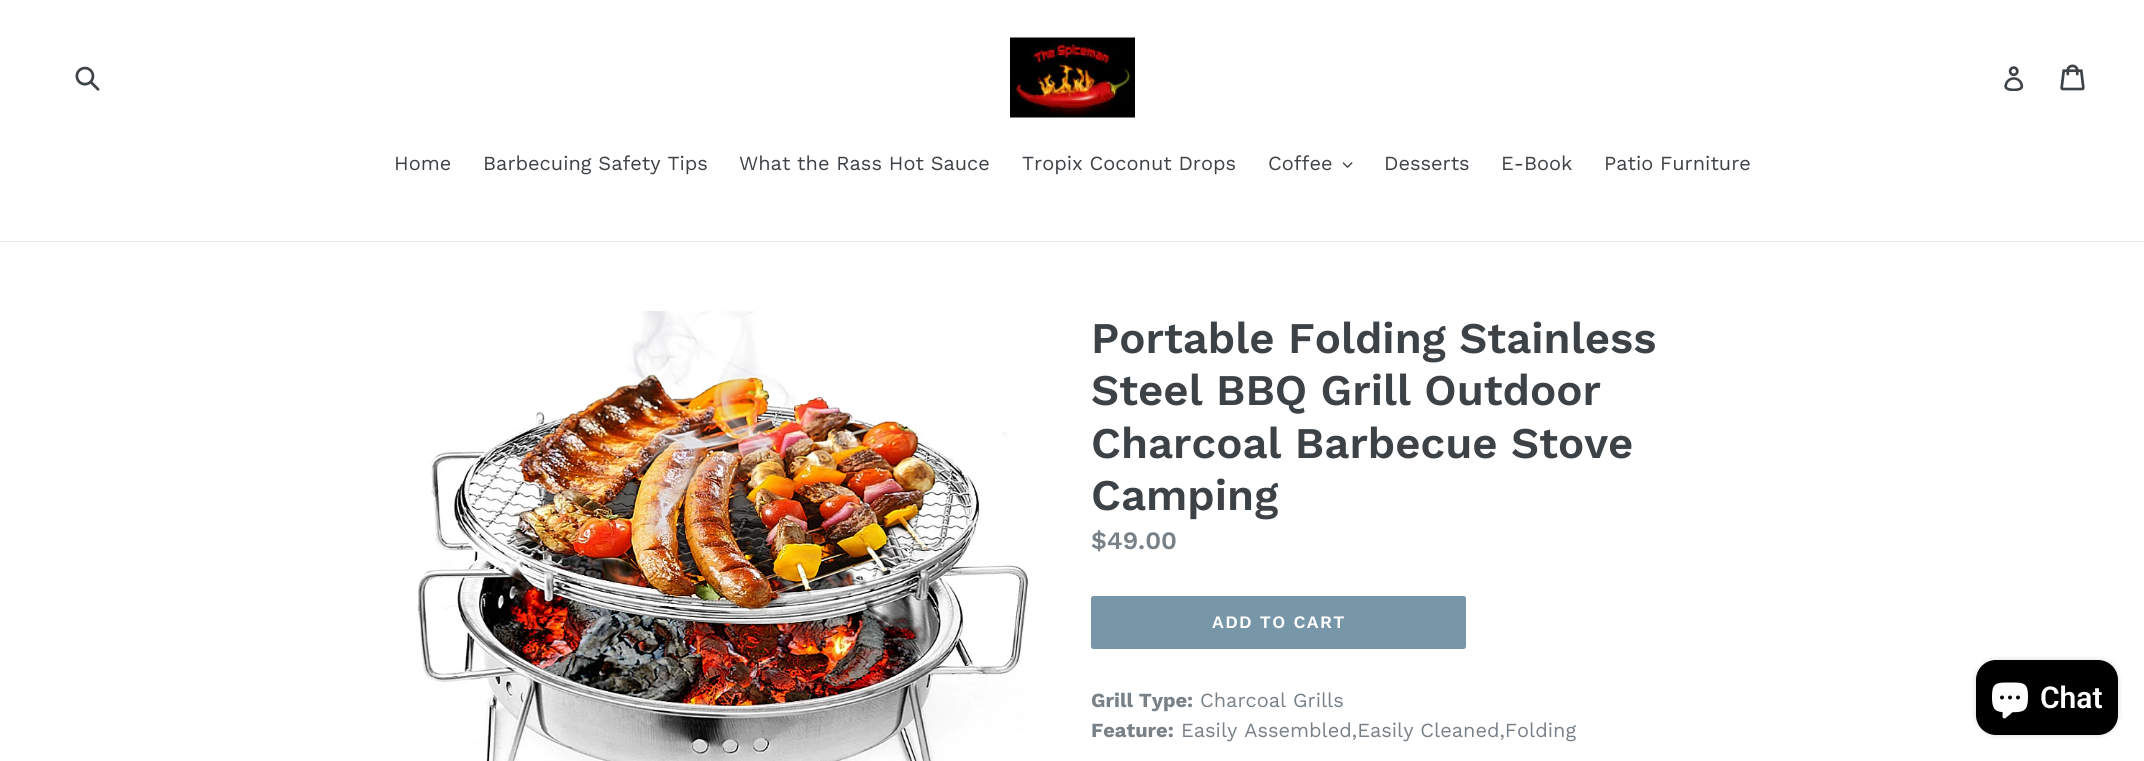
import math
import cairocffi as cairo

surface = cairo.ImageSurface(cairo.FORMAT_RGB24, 2144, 761)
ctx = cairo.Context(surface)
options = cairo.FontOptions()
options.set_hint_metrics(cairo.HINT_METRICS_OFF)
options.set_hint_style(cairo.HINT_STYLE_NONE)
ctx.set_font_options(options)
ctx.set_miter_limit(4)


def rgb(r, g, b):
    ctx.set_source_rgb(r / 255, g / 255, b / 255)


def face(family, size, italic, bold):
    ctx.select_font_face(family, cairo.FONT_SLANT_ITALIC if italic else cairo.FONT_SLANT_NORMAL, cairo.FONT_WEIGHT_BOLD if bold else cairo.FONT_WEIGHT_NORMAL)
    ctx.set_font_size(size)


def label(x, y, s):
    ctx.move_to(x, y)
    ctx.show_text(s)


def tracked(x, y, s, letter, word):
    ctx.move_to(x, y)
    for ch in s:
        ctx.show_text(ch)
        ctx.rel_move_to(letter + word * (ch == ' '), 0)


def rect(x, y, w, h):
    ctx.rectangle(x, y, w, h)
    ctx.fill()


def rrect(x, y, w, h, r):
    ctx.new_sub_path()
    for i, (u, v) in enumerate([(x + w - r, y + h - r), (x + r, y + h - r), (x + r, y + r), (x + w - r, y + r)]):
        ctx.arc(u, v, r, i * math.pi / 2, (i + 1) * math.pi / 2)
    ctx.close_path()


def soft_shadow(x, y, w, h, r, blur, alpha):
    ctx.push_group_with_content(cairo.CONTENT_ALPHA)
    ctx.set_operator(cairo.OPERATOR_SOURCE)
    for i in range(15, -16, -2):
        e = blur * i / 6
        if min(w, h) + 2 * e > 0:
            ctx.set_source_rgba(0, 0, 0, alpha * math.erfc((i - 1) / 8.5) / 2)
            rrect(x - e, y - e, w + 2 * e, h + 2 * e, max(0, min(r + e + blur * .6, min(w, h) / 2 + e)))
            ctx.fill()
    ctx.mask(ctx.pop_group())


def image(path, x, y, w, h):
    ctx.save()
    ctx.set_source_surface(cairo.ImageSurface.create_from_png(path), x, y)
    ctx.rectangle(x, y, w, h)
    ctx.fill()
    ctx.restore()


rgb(255, 255, 255)
ctx.paint()
image('image0.png', 75, 66, 25, 25)
image('image1.png', 1010, 37, 125, 81)
image('image2.png', 2004, 66, 20, 25)
image('image3.png', 2060, 64, 25, 27)
rgb(232, 233, 235)
rect(0, 241, 2144, 1)
face('Work Sans', 20, 0, 0)
rgb(61, 66, 70)
label(394, 170, 'Home')
label(483, 170, 'Barbecuing Safety Tips')
label(739, 170, 'What the Rass Hot Sauce')
label(1022, 170, 'Tropix Coconut Drops')
label(1268, 170, 'Coffee')
image('image4.png', 1343, 162, 10, 6)
label(1384, 170, 'Desserts')
label(1501, 170, 'E-Book')
label(1604, 170, 'Patio Furniture')
image('image5.png', 417, 311, 612, 450)
face('Work Sans SemiBold', 43.75, 0, 0)
label(1091, 353, 'Portable Folding Stainless')
label(1091, 405, 'Steel BBQ Grill Outdoor')
label(1091, 458, 'Charcoal Barbecue Stove')
label(1091, 510, 'Camping')
face('Work Sans SemiBold', 25, 0, 0)
rgb(120, 129, 136)
label(1091, 549, '$49.00')
rgb(119, 150, 168)
rrect(1091, 596, 375, 53, 2.5)
ctx.fill()
face('Work Sans SemiBold', 17.5, 0, 0)
rgb(255, 255, 255)
tracked(1212, 628, 'ADD TO CART', 1.4, 0)
face('Work Sans', 20, 0, 1)
rgb(120, 129, 136)
label(1091, 707, 'Grill Type:')
face('Work Sans', 20, 0, 0)
label(1200, 707, 'Charcoal Grills')
face('Work Sans', 20, 0, 1)
label(1091, 737, 'Feature:')
face('Work Sans', 20, 0, 0)
label(1181, 737, 'Easily Assembled,Easily Cleaned,Folding')
rgb(0, 0, 0)
soft_shadow(1976, 660, 142, 75, 20, 3, 0.15)
rgb(0, 0, 0)
rrect(1976, 660, 142, 75, 20)
ctx.fill()
image('image6.png', 1992, 682, 36, 37)
face('Roboto SemiBold', 30, 0, 0)
rgb(255, 255, 255)
label(2040, 708, 'Chat')
surface.write_to_png('render.png')
